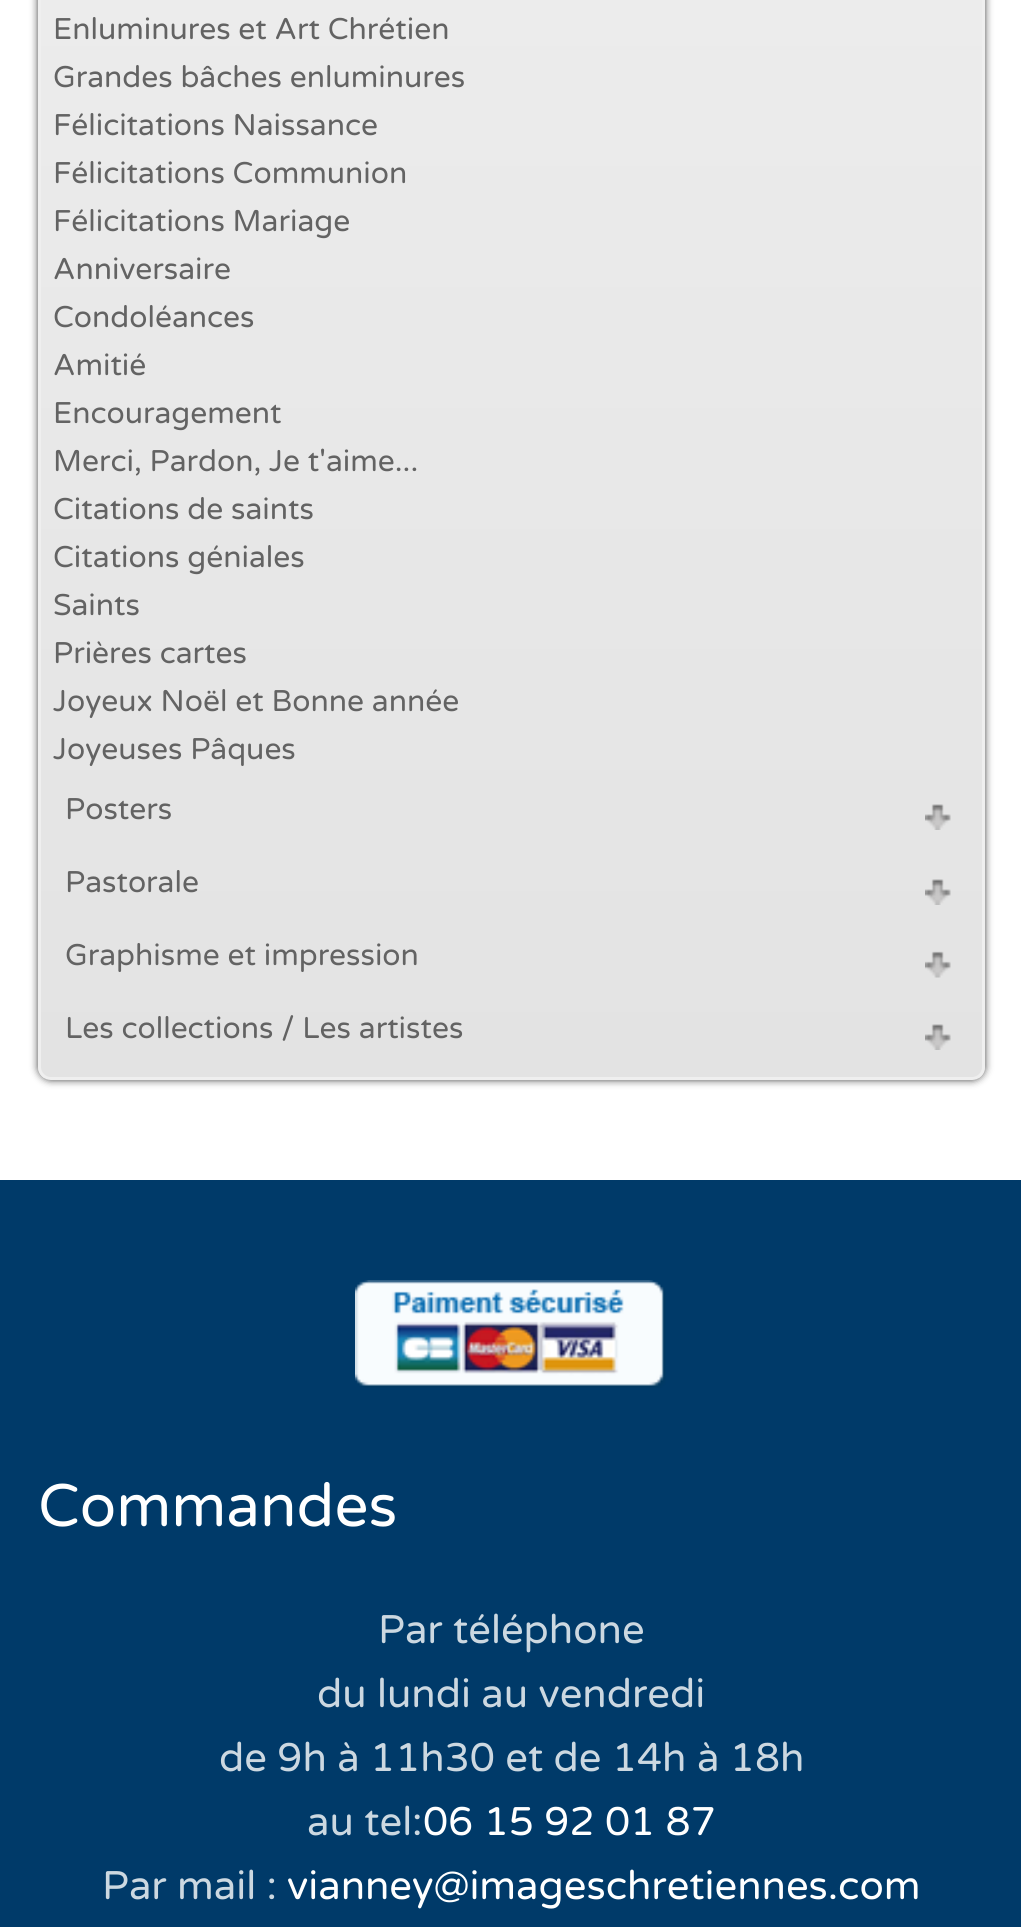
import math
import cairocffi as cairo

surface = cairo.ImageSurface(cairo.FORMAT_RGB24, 1021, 1927)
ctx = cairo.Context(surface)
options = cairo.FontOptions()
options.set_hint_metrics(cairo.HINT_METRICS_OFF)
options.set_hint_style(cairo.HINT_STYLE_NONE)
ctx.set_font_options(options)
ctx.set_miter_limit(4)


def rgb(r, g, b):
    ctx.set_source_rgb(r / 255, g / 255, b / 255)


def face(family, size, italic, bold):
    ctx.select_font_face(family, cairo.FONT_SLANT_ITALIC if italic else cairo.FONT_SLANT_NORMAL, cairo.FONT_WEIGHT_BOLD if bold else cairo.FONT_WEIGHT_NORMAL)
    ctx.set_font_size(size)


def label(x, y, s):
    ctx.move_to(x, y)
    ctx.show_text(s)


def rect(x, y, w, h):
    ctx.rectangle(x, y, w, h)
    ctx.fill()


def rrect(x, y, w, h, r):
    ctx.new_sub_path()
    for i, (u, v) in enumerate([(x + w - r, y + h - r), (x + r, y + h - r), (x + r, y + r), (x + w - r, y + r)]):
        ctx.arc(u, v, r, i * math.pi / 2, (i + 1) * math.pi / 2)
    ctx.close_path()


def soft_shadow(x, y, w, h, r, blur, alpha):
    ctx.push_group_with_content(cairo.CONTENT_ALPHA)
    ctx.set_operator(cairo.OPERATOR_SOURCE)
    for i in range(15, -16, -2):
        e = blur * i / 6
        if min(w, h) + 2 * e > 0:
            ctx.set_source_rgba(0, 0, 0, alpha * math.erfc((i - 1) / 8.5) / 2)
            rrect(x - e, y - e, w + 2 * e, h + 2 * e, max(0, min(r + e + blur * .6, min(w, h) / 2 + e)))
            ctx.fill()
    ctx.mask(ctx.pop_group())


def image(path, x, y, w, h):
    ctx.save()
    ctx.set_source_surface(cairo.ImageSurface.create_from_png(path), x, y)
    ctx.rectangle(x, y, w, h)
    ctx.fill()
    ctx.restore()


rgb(255, 255, 255)
ctx.paint()
rgb(68, 68, 68)
soft_shadow(38, -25, 947, 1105, 13, 4, 1)
ctx.save()
rrect(38, -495, 947, 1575, 13)
ctx.clip()
gradient = cairo.LinearGradient(511, -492, 511, 1078)
gradient.add_color_stop_rgba(0, 0.941, 0.941, 0.941, 1)
gradient.add_color_stop_rgba(1, 0.89, 0.89, 0.89, 1)
ctx.set_source(gradient)
rect(38, 0, 947, 1078)
ctx.restore()
rrect(39.5, -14.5, 944, 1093, 11.5)
rgb(239, 239, 239)
ctx.set_line_width(3)
ctx.stroke()
face('Varela Round', 30, 0, 0)
rgb(99, 99, 99)
label(53, 39, 'Enluminures et Art Chrétien')
label(53, 87, 'Grandes bâches enluminures')
label(53, 135, 'Félicitations Naissance')
label(53, 183, 'Félicitations Communion')
label(53, 231, 'Félicitations Mariage')
label(53, 279, 'Anniversaire')
label(53, 327, 'Condoléances')
label(53, 375, 'Amitié')
label(53, 423, 'Encouragement')
label(53, 471, 'Merci, Pardon, Je t\'aime...')
label(53, 519, 'Citations de saints')
label(53, 567, 'Citations géniales')
label(53, 615, 'Saints')
label(53, 663, 'Prières cartes')
label(53, 711, 'Joyeux Noël et Bonne année')
label(53, 759, 'Joyeuses Pâques')
label(65, 819, 'Posters')
image('image0.png', 925, 804, 26, 26)
label(65, 892, 'Pastorale')
image('image1.png', 925, 879, 26, 26)
label(65, 965, 'Graphisme et impression')
image('image2.png', 925, 951, 26, 27)
label(65, 1038, 'Les collections / Les artistes')
image('image3.png', 925, 1024, 26, 26)
rgb(0, 58, 105)
rect(0, 1180, 1021, 747)
image('image4.png', 355, 1280, 311, 108)
face('Varela Round', 60, 0, 0)
rgb(255, 255, 255)
label(38, 1526, 'Commandes')
face('Varela Round', 40, 0, 0)
rgb(204, 216, 225)
label(378, 1643, 'Par téléphone')
label(317, 1707, 'du lundi au vendredi')
label(219, 1771, 'de 9h à 11h30 et de 14h à 18h')
label(307, 1835, 'au tel:')
rgb(255, 255, 255)
label(423, 1835, '06 15 92 01 87')
rgb(204, 216, 225)
label(102, 1899, 'Par mail :')
rgb(255, 255, 255)
label(287, 1899, 'vianney@imageschretiennes.com')
surface.write_to_png('render.png')
